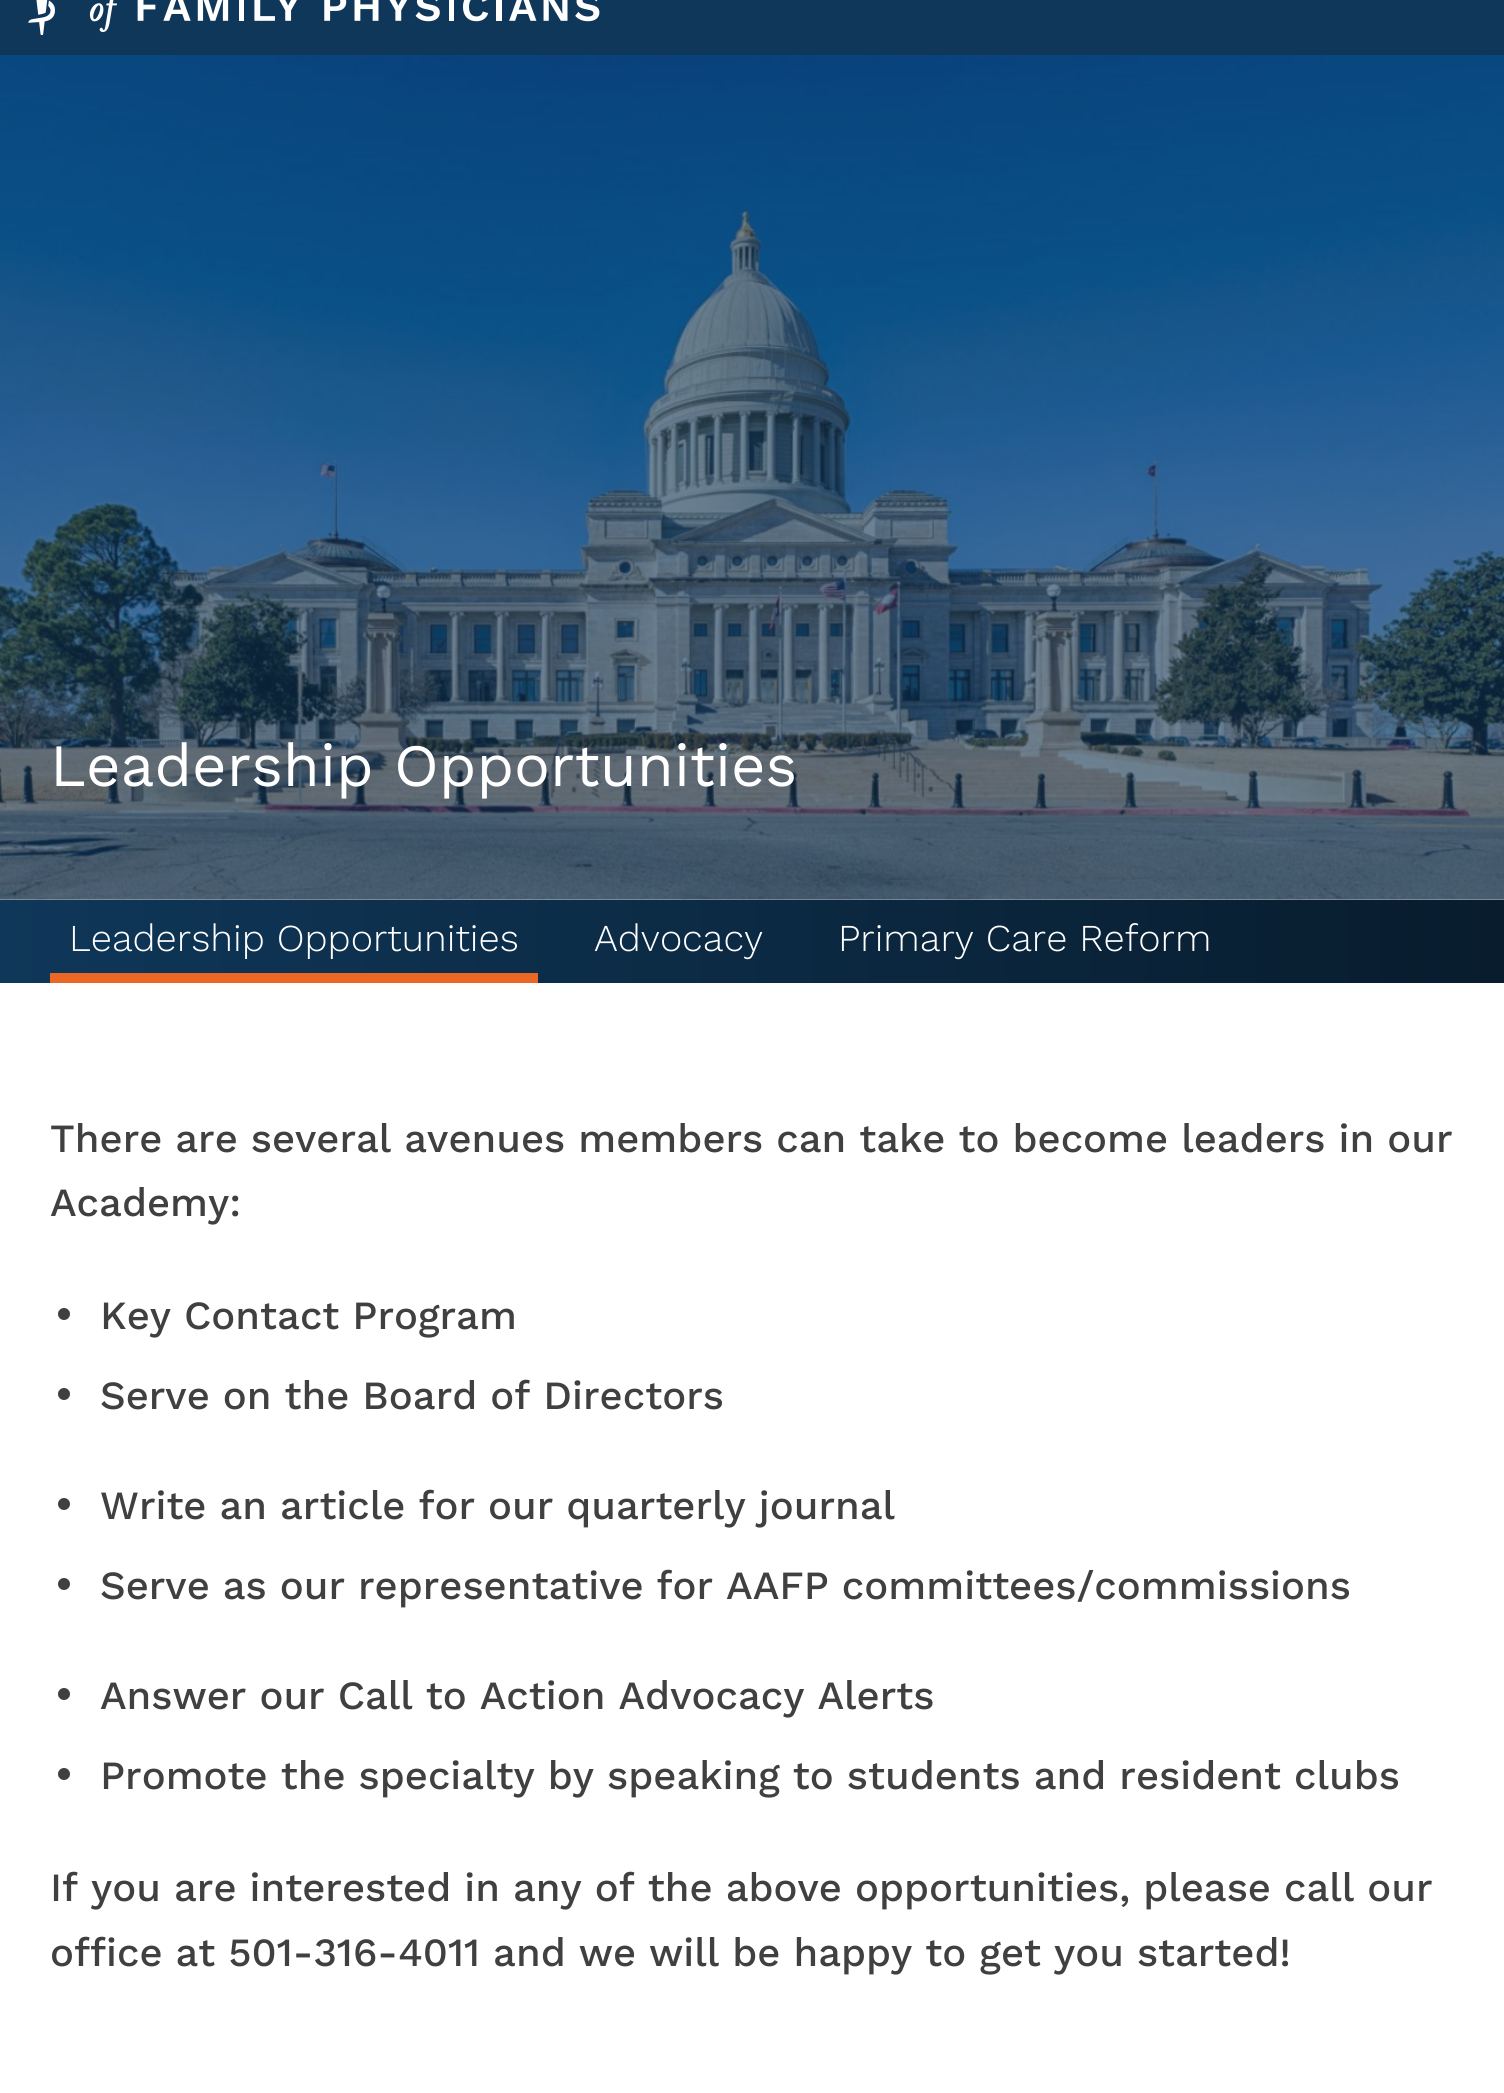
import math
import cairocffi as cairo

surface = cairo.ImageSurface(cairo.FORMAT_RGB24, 1504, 2093)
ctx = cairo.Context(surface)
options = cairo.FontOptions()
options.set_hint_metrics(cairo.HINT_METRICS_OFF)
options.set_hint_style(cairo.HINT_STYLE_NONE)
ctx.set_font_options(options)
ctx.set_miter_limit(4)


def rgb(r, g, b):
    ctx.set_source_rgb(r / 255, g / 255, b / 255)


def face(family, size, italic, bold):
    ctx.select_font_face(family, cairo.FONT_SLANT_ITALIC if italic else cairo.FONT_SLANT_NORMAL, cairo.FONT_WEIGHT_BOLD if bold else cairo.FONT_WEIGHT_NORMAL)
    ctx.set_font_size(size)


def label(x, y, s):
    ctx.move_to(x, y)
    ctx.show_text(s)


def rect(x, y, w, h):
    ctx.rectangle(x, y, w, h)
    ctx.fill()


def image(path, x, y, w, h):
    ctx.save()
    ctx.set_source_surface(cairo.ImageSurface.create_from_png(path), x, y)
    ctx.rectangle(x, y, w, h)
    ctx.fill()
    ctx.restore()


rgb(255, 255, 255)
ctx.paint()
rgb(15, 55, 89)
rect(0, 0, 1504, 55)
image('image0.png', 28, 0, 572, 35)
image('image1.png', 0, 55, 1504, 845)
face('Work Sans', 60, 0, 0)
rgb(255, 255, 255)
label(50, 786, 'Leadership Opportunities')
gradient = cairo.LinearGradient(0, 941, 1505, 941)
gradient.add_color_stop_rgba(0, 0.059, 0.216, 0.349, 1)
gradient.add_color_stop_rgba(1, 0.031, 0.11, 0.176, 1)
ctx.set_source(gradient)
rect(0, 900, 1504, 83)
face('Work Sans Light', 38, 0, 0)
rgb(255, 255, 255)
label(69, 951, 'Leadership Opportunities')
rgb(234, 103, 37)
rect(50, 973, 488, 10)
rgb(255, 255, 255)
label(594, 951, 'Advocacy')
label(838, 951, 'Primary Care Reform')
face('Work Sans Medium', 40, 0, 0)
rgb(64, 64, 64)
label(50, 1152, 'There are several avenues members can take to become leaders in our')
label(50, 1216, 'Academy:')
ctx.new_path()
ctx.arc(64, 1314, 6, 0, 2 * math.pi)
ctx.fill()
label(100, 1329, 'Key Contact Program')
ctx.new_path()
ctx.arc(64, 1394, 6, 0, 2 * math.pi)
ctx.fill()
label(100, 1409, 'Serve on the Board of Directors')
ctx.new_path()
ctx.arc(64, 1504, 6, 0, 2 * math.pi)
ctx.fill()
label(100, 1519, 'Write an article for our quarterly journal')
ctx.new_path()
ctx.arc(64, 1584, 6, 0, 2 * math.pi)
ctx.fill()
label(100, 1599, 'Serve as our representative for AAFP committees/commissions')
ctx.new_path()
ctx.arc(64, 1694, 6, 0, 2 * math.pi)
ctx.fill()
label(100, 1709, 'Answer our Call to Action Advocacy Alerts')
ctx.new_path()
ctx.arc(64, 1774, 6, 0, 2 * math.pi)
ctx.fill()
label(100, 1789, 'Promote the specialty by speaking to students and resident clubs')
label(50, 1901, 'If you are interested in any of the above opportunities, please call our')
label(50, 1966, 'office at 501-316-4011 and we will be happy to get you started!')
surface.write_to_png('render.png')
